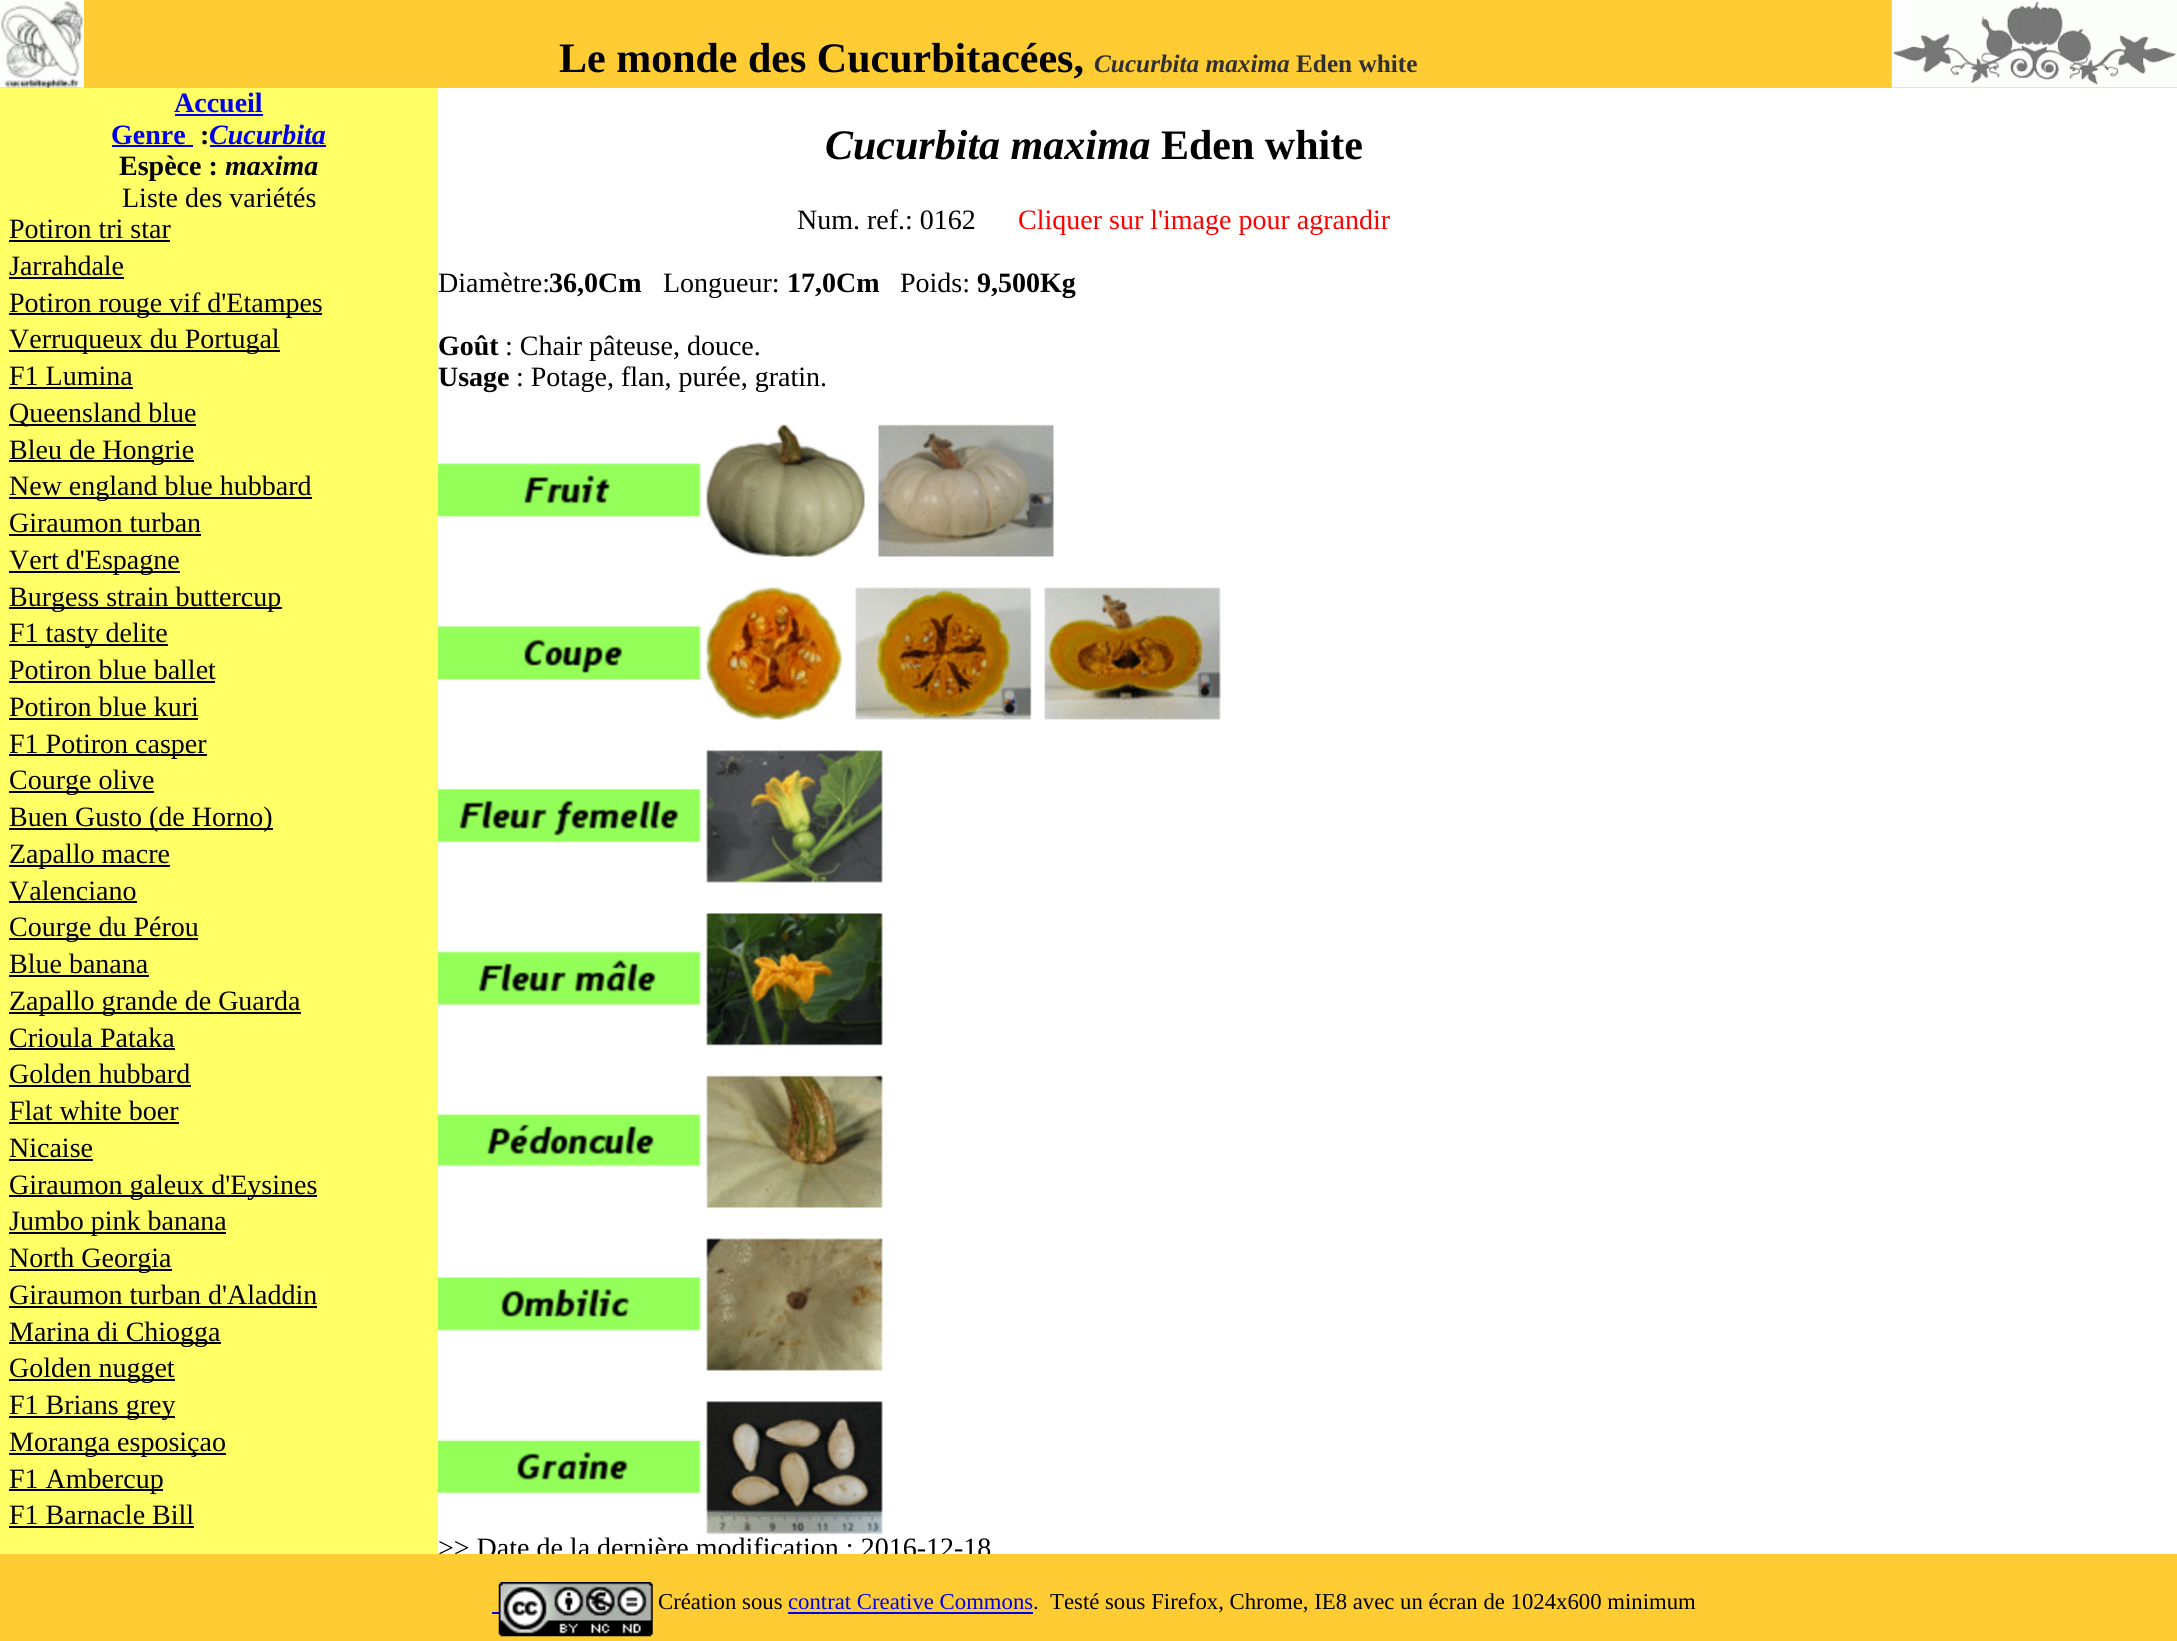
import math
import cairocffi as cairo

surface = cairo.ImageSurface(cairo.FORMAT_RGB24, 2177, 1641)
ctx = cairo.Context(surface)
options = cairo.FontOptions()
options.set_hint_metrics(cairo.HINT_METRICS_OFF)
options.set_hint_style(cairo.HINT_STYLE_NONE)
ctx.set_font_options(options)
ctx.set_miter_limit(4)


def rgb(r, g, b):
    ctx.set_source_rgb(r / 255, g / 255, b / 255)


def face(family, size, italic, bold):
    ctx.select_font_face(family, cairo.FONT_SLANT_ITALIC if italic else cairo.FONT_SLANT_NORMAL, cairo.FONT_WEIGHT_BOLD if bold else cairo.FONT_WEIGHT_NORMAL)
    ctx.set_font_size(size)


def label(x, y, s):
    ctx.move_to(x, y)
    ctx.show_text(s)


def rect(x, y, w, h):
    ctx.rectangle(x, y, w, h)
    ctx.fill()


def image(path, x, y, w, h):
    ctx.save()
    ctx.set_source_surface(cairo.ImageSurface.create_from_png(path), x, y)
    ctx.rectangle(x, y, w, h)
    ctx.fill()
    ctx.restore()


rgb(255, 255, 255)
ctx.paint()
rgb(255, 204, 51)
rect(0, 0, 2177, 88)
image('image0.png', 0, 0, 84, 88)
face('Liberation Serif', 42, 0, 1)
rgb(0, 0, 0)
label(559, 72, 'Le monde des Cucurbitacées,')
face('Liberation Serif', 25.25, 1, 1)
rgb(48, 48, 48)
label(1094, 72, 'Cucurbita maxima')
face('Liberation Serif', 25.25, 0, 1)
label(1296, 72, 'Eden white')
image('image1.png', 1891, 0, 286, 88)
rgb(255, 255, 102)
rect(0, 88, 438, 1466)
face('Liberation Serif', 28, 0, 1)
rgb(0, 0, 238)
label(174, 112, 'Accueil')
rect(175, 114, 88, 2)
label(111, 144, 'Genre')
rect(112, 145, 81, 2)
rgb(0, 0, 0)
label(200, 144, ':')
rgb(0, 0, 238)
rect(210, 145, 116, 2)
face('Liberation Serif', 28, 1, 1)
label(209, 144, 'Cucurbita')
face('Liberation Serif', 28, 0, 1)
rgb(0, 0, 0)
label(119, 175, 'Espèce :')
face('Liberation Serif', 28, 1, 1)
label(225, 175, 'maxima')
face('Liberation Serif', 28, 0, 0)
label(122, 207, 'Liste des variétés')
label(9, 238, 'Potiron tri star')
rect(9, 240, 161, 2)
label(9, 275, 'Jarrahdale')
rect(9, 277, 115, 2)
rect(9, 313, 313, 2)
label(9, 312, 'Potiron rouge vif d\'Etampes')
rect(9, 350, 271, 2)
label(9, 348, 'Verruqueux du Portugal')
label(9, 385, 'F1 Lumina')
rect(9, 387, 124, 2)
rect(9, 424, 187, 2)
label(9, 422, 'Queensland blue')
rect(9, 460, 185, 2)
label(9, 459, 'Bleu de Hongrie')
rect(9, 497, 303, 2)
label(9, 495, 'New england blue hubbard')
label(9, 532, 'Giraumon turban')
rect(9, 534, 192, 2)
rect(9, 571, 171, 2)
label(9, 569, 'Vert d\'Espagne')
rect(9, 607, 273, 2)
label(9, 606, 'Burgess strain buttercup')
rect(9, 644, 159, 2)
label(9, 642, 'F1 tasty delite')
label(9, 679, 'Potiron blue ballet')
rect(9, 681, 206, 2)
label(9, 716, 'Potiron blue kuri')
rect(9, 718, 189, 2)
rect(9, 754, 198, 2)
label(9, 753, 'F1 Potiron casper')
rect(9, 791, 145, 2)
label(9, 789, 'Courge olive')
rect(9, 828, 264, 2)
label(9, 826, 'Buen Gusto (de Horno)')
rect(9, 865, 161, 2)
label(9, 863, 'Zapallo macre')
label(9, 900, 'Valenciano')
rect(9, 901, 128, 2)
rect(9, 938, 189, 2)
label(9, 936, 'Courge du Pérou')
label(9, 973, 'Blue banana')
rect(9, 975, 140, 2)
rect(9, 1012, 292, 2)
label(9, 1010, 'Zapallo grande de Guarda')
label(9, 1047, 'Crioula Pataka')
rect(9, 1048, 166, 2)
label(9, 1083, 'Golden hubbard')
rect(9, 1085, 182, 2)
label(9, 1120, 'Flat white boer')
rect(9, 1122, 170, 2)
label(9, 1157, 'Nicaise')
rect(9, 1159, 84, 2)
rect(9, 1195, 308, 2)
label(9, 1194, 'Giraumon galeux d\'Eysines')
rect(9, 1232, 217, 2)
label(9, 1230, 'Jumbo pink banana')
rect(9, 1269, 163, 2)
label(9, 1267, 'North Georgia')
label(9, 1304, 'Giraumon turban d\'Aladdin')
rect(9, 1306, 308, 2)
rect(9, 1342, 212, 2)
label(9, 1341, 'Marina di Chiogga')
rect(9, 1379, 166, 2)
label(9, 1377, 'Golden nugget')
rect(9, 1416, 166, 2)
label(9, 1414, 'F1 Brians grey')
rect(9, 1453, 217, 2)
label(9, 1451, 'Moranga esposiçao')
rect(9, 1489, 154, 2)
label(9, 1488, 'F1 Ambercup')
label(9, 1524, 'F1 Barnacle Bill')
rect(9, 1526, 185, 2)
face('Liberation Serif', 42, 1, 1)
label(825, 159, 'Cucurbita maxima')
face('Liberation Serif', 42, 0, 1)
label(1161, 159, 'Eden white')
face('Liberation Serif', 28, 0, 0)
label(797, 229, 'Num. ref.: 0162')
rgb(255, 0, 0)
label(1018, 229, 'Cliquer sur l\'image pour agrandir')
rgb(0, 0, 0)
label(438, 292, 'Diamètre:')
face('Liberation Serif', 28, 0, 1)
label(549, 292, '36,0Cm')
face('Liberation Serif', 28, 0, 0)
label(663, 292, 'Longueur:')
face('Liberation Serif', 28, 0, 1)
label(787, 292, '17,0Cm')
face('Liberation Serif', 28, 0, 0)
label(900, 292, 'Poids:')
face('Liberation Serif', 28, 0, 1)
label(977, 292, '9,500Kg')
label(438, 355, 'Goût')
face('Liberation Serif', 28, 0, 0)
label(505, 355, ': Chair pâteuse, douce.')
face('Liberation Serif', 28, 0, 1)
label(438, 386, 'Usage')
face('Liberation Serif', 28, 0, 0)
label(516, 386, ': Potage, flan, purée, gratin.')
image('image2.png', 438, 463, 263, 54)
image('image3.png', 706, 424, 159, 133)
image('image4.png', 878, 424, 176, 133)
image('image5.png', 438, 626, 263, 54)
image('image6.png', 706, 587, 137, 133)
image('image7.png', 855, 587, 177, 133)
image('image8.png', 1044, 587, 177, 133)
image('image9.png', 438, 788, 263, 55)
image('image10.png', 706, 750, 177, 133)
image('image11.png', 438, 951, 263, 54)
image('image12.png', 706, 913, 177, 133)
image('image13.png', 438, 1114, 263, 53)
image('image14.png', 706, 1075, 177, 133)
image('image15.png', 438, 1277, 263, 54)
image('image16.png', 706, 1238, 177, 133)
image('image17.png', 438, 1439, 263, 55)
image('image18.png', 706, 1401, 177, 133)
label(438, 1557, '>> Date de la dernière modification : 2016-12-18')
rgb(255, 204, 51)
rect(0, 1554, 2177, 87)
rgb(0, 0, 238)
rect(492, 1612, 7, 2)
image('image19.png', 498, 1582, 155, 55)
face('Liberation Serif', 22.75, 0, 0)
rgb(0, 0, 0)
label(658, 1609, 'Création sous')
rgb(0, 0, 238)
label(788, 1609, 'contrat Creative Commons')
rgb(0, 0, 0)
label(1033, 1609, '.  Testé sous Firefox, Chrome, IE8 avec un écran de 1024x600 minimum')
rgb(0, 0, 238)
rect(788, 1612, 245, 2)
surface.write_to_png('render.png')
